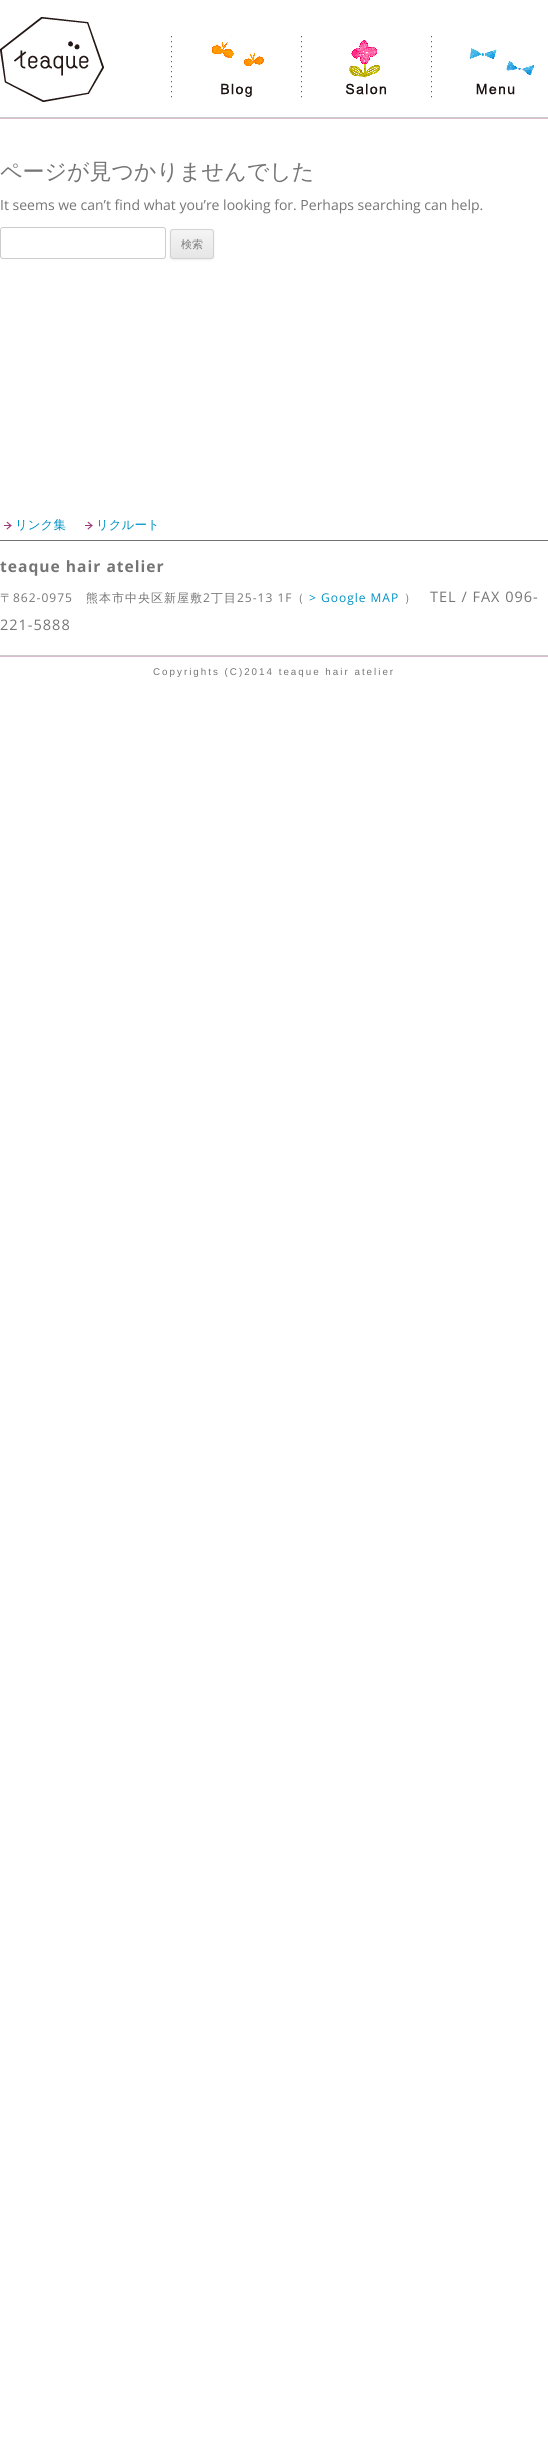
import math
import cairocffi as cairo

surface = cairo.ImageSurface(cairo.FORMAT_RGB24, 548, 2461)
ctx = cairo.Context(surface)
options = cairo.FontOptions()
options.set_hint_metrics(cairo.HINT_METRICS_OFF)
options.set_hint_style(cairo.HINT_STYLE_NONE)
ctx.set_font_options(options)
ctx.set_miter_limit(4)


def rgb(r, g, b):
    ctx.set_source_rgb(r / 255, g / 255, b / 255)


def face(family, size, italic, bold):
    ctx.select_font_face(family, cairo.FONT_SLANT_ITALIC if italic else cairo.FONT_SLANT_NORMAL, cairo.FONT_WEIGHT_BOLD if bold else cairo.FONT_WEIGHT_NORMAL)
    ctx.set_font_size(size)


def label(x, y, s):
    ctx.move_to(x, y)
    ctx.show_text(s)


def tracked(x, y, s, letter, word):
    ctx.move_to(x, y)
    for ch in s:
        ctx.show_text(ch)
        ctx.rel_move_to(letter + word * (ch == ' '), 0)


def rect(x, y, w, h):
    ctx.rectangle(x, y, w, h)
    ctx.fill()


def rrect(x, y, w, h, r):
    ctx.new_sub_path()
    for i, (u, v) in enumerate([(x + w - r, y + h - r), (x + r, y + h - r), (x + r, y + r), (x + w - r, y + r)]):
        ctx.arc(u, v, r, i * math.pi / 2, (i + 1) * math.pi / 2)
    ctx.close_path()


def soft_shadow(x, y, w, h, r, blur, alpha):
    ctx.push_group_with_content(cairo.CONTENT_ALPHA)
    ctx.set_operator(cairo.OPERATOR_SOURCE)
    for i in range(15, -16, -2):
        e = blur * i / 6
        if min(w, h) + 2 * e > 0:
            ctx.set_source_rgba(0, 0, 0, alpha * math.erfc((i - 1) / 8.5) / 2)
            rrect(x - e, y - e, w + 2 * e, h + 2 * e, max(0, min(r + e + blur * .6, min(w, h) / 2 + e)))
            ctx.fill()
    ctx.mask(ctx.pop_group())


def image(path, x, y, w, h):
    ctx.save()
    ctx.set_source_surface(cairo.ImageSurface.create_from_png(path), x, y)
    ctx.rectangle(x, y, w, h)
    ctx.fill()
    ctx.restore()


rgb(255, 255, 255)
ctx.paint()
image('image0.png', 0, 17, 104, 85)
image('image1.png', 171, 36, 368, 62)
rgb(204, 204, 204)
rect(0, 117, 548, 1)
rgb(219, 188, 204)
rect(0, 118, 548, 1)
face('WenQuanYi Zen Hei Medium', 22, 0, 0)
rgb(117, 117, 117)
label(0, 179, 'ページが見つかりませんでした')
face('Open Sans', 14, 0, 0)
label(0, 210, 'It seems we can’t find what you’re looking for. Perhaps searching can help.')
rrect(0.5, 227.5, 165, 31, 2.5)
rgb(204, 204, 204)
ctx.set_line_width(1)
ctx.stroke()
rgb(64, 64, 64)
soft_shadow(170, 230, 44, 30, 3, 1, 0.1)
ctx.save()
rrect(170, 229, 44, 30, 3)
ctx.clip()
gradient = cairo.LinearGradient(192, 230, 192, 258)
gradient.add_color_stop_rgba(0, 0.957, 0.957, 0.957, 1)
gradient.add_color_stop_rgba(1, 0.902, 0.902, 0.902, 1)
ctx.set_source(gradient)
rect(170, 230, 44, 28)
ctx.restore()
rrect(170.5, 229.5, 43, 29, 2.5)
rgb(210, 210, 210)
ctx.stroke()
face('WenQuanYi Zen Hei Medium', 11, 0, 0)
rgb(124, 124, 124)
label(181, 248, '検索')
image('image2.png', 4, 521, 8, 9)
face('WenQuanYi Zen Hei Medium', 12.5, 0, 0)
rgb(0, 144, 195)
label(15, 529, 'リンク集')
image('image2.png', 85, 521, 8, 9)
label(96, 529, 'リクルート')
rgb(114, 113, 113)
rect(0, 540, 548, 1)
face('Open Sans', 15.6, 0, 1)
rgb(117, 117, 117)
tracked(0, 572, 'teaque hair atelier', 1, 0)
face('WenQuanYi Zen Hei Medium', 12, 0, 0)
tracked(0, 602, '〒', 1, 0)
face('Open Sans', 12, 0, 0)
tracked(13, 602, '862-0975', 1, 0)
face('WenQuanYi Zen Hei Medium', 12, 0, 0)
tracked(86, 602, '熊本市中央区新屋敷', 1, 0)
face('Open Sans', 12, 0, 0)
tracked(203, 602, '2', 1, 0)
face('WenQuanYi Zen Hei Medium', 12, 0, 0)
tracked(211, 602, '丁目', 1, 0)
face('Open Sans', 12, 0, 0)
tracked(237, 602, '25-13 1F', 1, 0)
face('WenQuanYi Zen Hei Medium', 12, 0, 0)
tracked(292, 602, '（', 1, 0)
face('Open Sans', 12, 0, 0)
rgb(0, 144, 195)
tracked(309, 602, '> Google MAP', 1, 0)
face('WenQuanYi Zen Hei Medium', 12, 0, 0)
rgb(117, 117, 117)
tracked(404, 602, '）', 1, 0)
face('Open Sans', 14.5, 0, 0)
tracked(430, 602, 'TEL / FAX 096-', 1, 0)
tracked(0, 630, '221-5888', 1, 0)
rgb(204, 204, 204)
rect(0, 655, 548, 1)
rgb(219, 188, 204)
rect(0, 656, 548, 1)
face('Liberation Sans', 9.8, 0, 0)
rgb(117, 117, 117)
tracked(153, 675, 'Copyrights (C)2014 teaque hair atelier', 2, 0)
surface.write_to_png('render.png')
